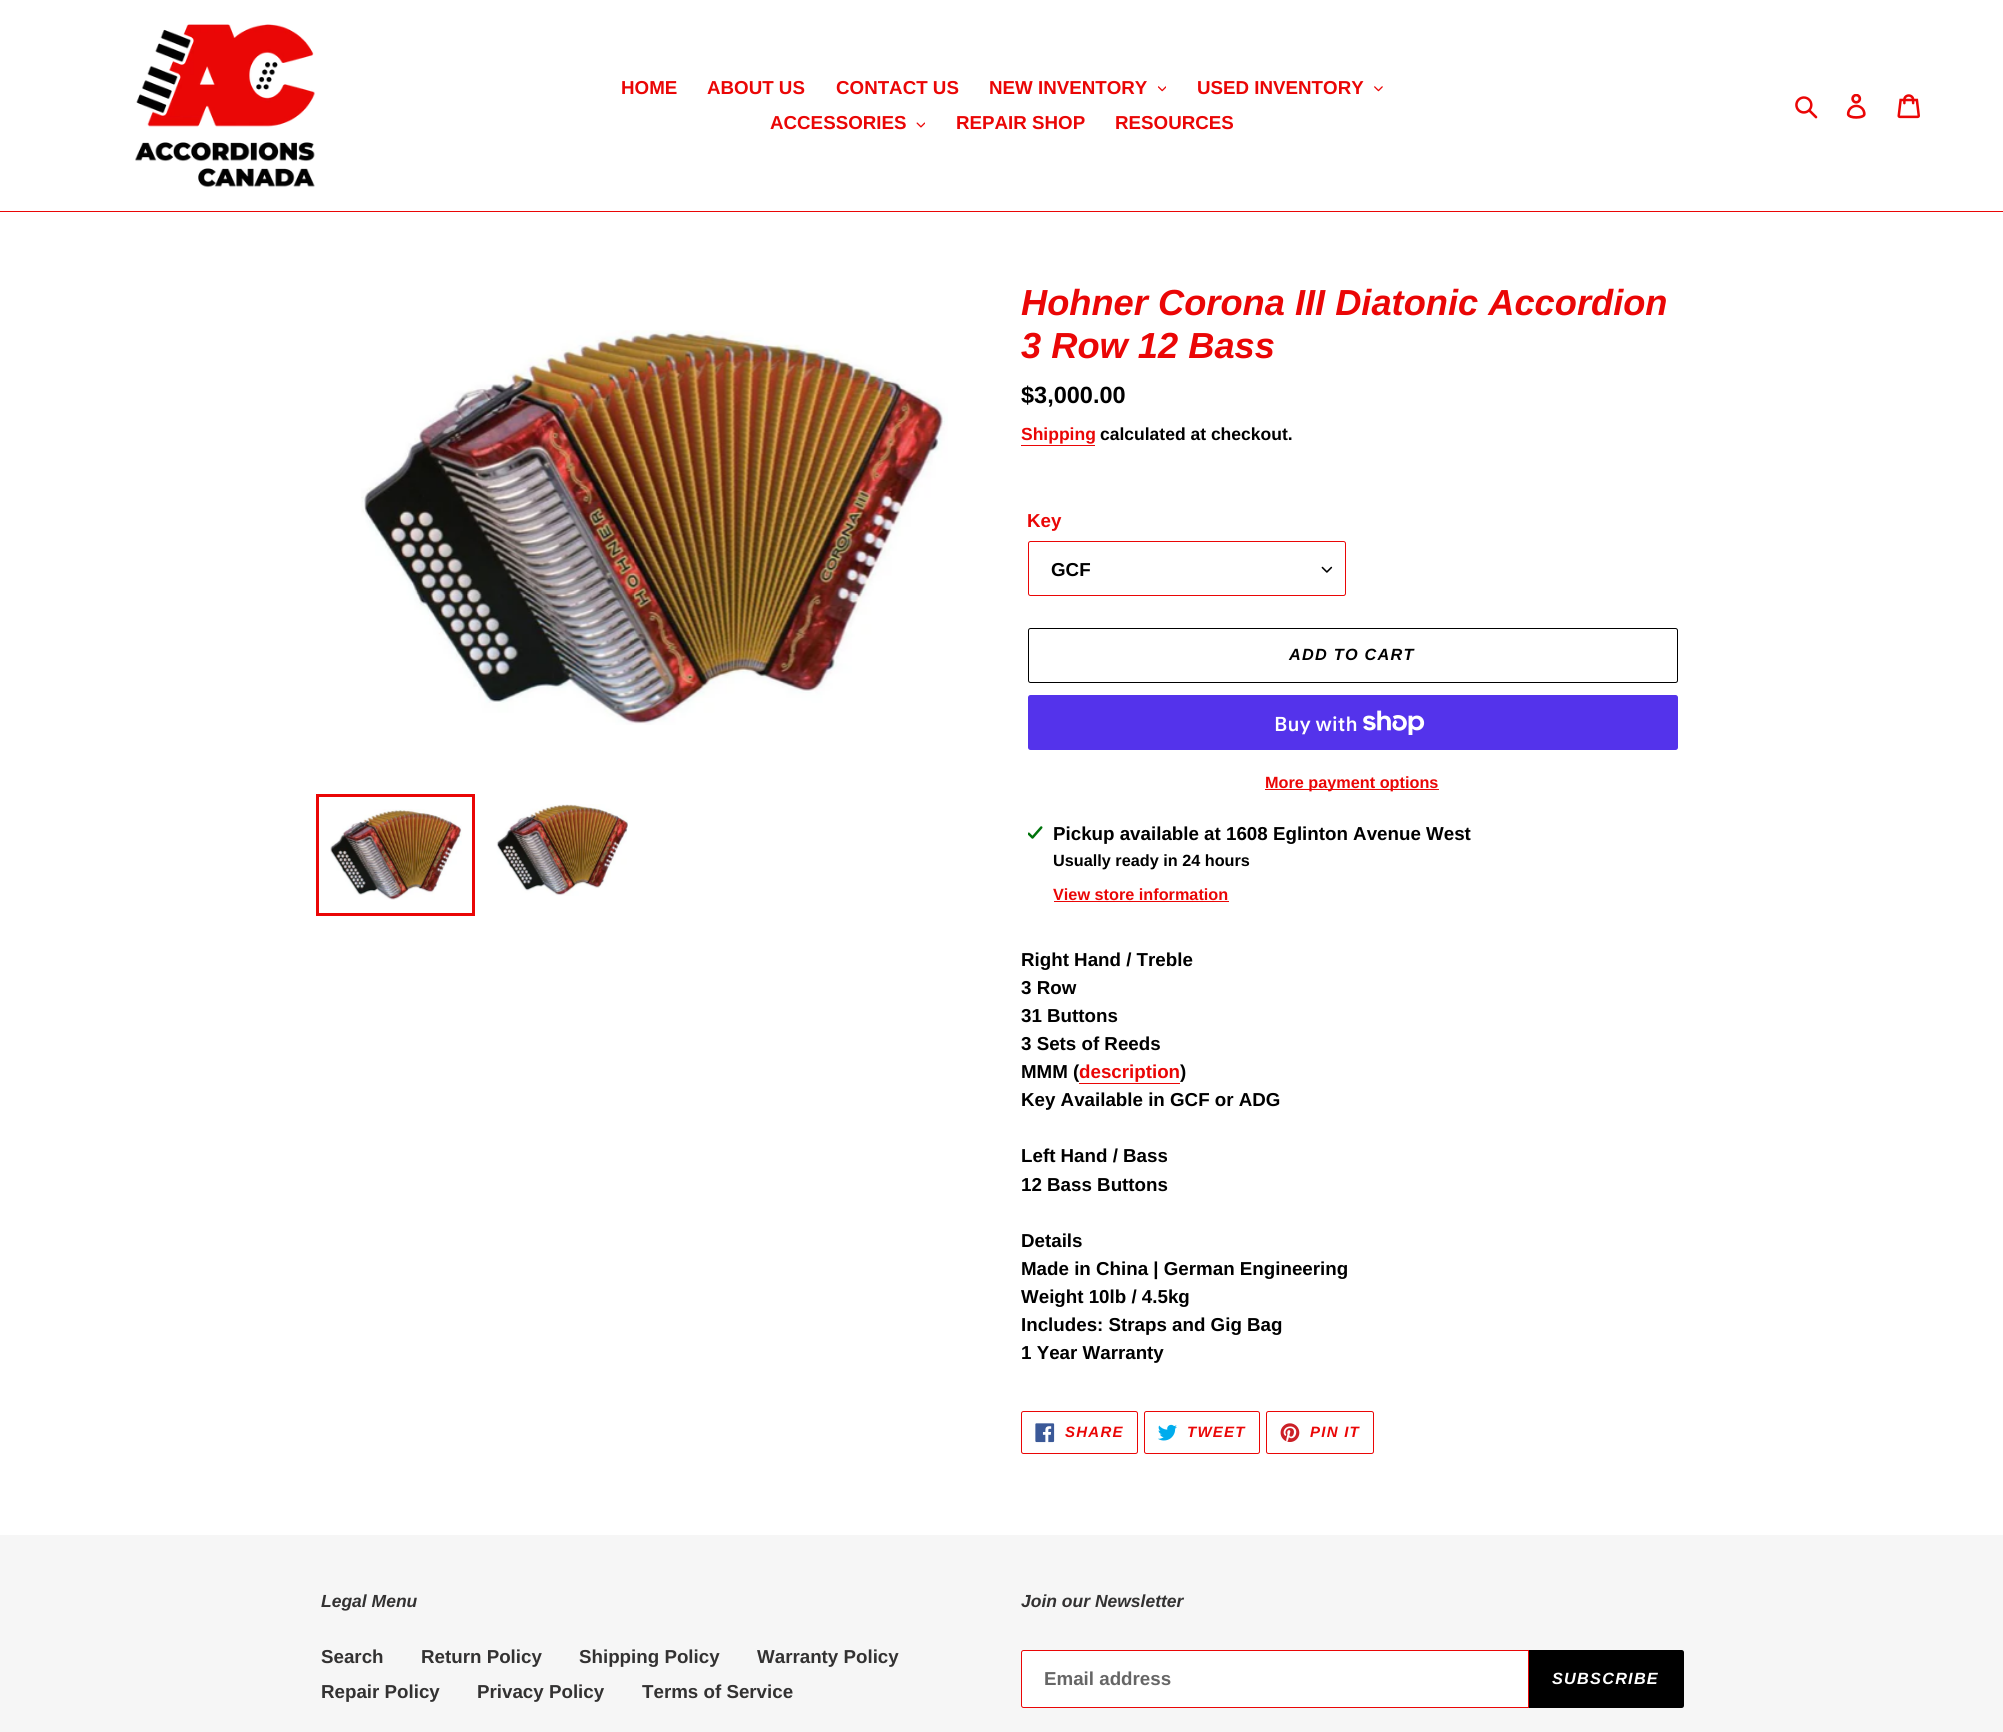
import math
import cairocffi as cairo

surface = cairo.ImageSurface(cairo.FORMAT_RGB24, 2003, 1732)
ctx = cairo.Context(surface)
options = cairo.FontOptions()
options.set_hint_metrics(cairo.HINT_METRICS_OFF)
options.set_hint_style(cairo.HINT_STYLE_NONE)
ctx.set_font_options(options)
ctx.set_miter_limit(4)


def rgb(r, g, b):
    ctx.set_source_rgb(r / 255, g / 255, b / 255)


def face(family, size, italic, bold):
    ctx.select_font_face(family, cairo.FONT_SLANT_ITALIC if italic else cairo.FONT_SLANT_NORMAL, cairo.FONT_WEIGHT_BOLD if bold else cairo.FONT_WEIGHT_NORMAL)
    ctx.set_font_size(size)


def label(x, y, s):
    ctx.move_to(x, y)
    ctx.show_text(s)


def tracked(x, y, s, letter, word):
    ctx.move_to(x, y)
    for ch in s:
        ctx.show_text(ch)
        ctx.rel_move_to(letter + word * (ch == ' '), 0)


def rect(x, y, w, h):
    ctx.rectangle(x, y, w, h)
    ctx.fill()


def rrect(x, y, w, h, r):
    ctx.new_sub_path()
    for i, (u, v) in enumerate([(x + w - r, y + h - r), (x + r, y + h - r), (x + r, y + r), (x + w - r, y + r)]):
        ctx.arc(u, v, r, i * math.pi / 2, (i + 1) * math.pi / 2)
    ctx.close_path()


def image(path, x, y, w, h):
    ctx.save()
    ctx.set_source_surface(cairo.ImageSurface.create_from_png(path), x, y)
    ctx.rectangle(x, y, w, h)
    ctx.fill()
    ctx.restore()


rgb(255, 255, 255)
ctx.paint()
rgb(234, 6, 6)
rect(0, 211, 2003, 1)
image('image0.png', 135, 24, 180, 164)
face('Liberation Sans', 18.75, 0, 1)
label(621, 94, 'HOME')
label(707, 94, 'ABOUT US')
label(836, 94, 'CONTACT US')
label(989, 94, 'NEW INVENTORY')
image('image1.png', 1158, 86, 8, 6)
label(1197, 94, 'USED INVENTORY')
image('image2.png', 1374, 86, 9, 6)
label(770, 129, 'ACCESSORIES')
image('image3.png', 916, 122, 9, 6)
label(956, 129, 'REPAIR SHOP')
label(1115, 129, 'RESOURCES')
image('image4.png', 1795, 96, 23, 23)
image('image5.png', 1846, 94, 20, 25)
image('image6.png', 1897, 94, 23, 25)
image('image7.png', 361, 330, 587, 395)
ctx.rectangle(317.5, 795.5, 156, 119)
ctx.set_line_width(3)
ctx.stroke()
image('image8.png', 330, 809, 132, 91)
image('image9.png', 496, 804, 132, 92)
face('Liberation Sans', 36.25, 1, 1)
label(1021, 315, 'Hohner Corona III Diatonic Accordion')
label(1021, 358, '3 Row 12 Bass')
face('Liberation Sans', 23.5, 0, 1)
rgb(0, 0, 0)
label(1021, 403, '$3,000.00')
face('Liberation Sans', 17.5, 0, 1)
rgb(234, 6, 6)
label(1021, 440, 'Shipping')
rect(1021, 445, 74, 1)
rgb(0, 0, 0)
label(1100, 440, 'calculated at checkout.')
face('Liberation Sans', 18.75, 0, 1)
rgb(234, 6, 6)
label(1027, 527, 'Key')
image('image10.png', 1321, 566, 12, 7)
rrect(1028.5, 541.5, 317, 54, 2)
ctx.set_line_width(1)
ctx.stroke()
rgb(0, 0, 0)
label(1051, 576, 'GCF')
rrect(1028.5, 628.5, 649, 54, 2)
ctx.stroke()
face('Liberation Sans', 16.25, 1, 1)
tracked(1289, 660, 'ADD TO CART', 1.25, 0)
rgb(84, 51, 235)
rrect(1028, 695, 650, 55, 2.5)
ctx.fill()
face('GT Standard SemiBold', 20, 0, 0)
rgb(255, 255, 255)
label(1274, 731, 'Buy with')
image('image11.png', 1363, 710, 62, 25)
rgb(234, 6, 6)
rect(1265, 789, 174, 1)
face('Liberation Sans', 16.25, 0, 1)
label(1265, 788, 'More payment options')
image('image12.png', 1028, 826, 15, 13)
face('Liberation Sans', 18.75, 0, 1)
rgb(0, 0, 0)
label(1053, 840, 'Pickup available at 1608 Eglinton Avenue West')
face('Liberation Sans', 16.25, 0, 1)
label(1053, 866, 'Usually ready in 24 hours')
rgb(234, 6, 6)
label(1053, 900, 'View store information')
rect(1054, 901, 175, 1)
face('Liberation Sans', 18.75, 0, 1)
rgb(0, 0, 0)
label(1021, 966, 'Right Hand / Treble')
label(1021, 994, '3 Row')
label(1021, 1022, '31 Buttons')
label(1021, 1050, '3 Sets of Reeds')
label(1021, 1078, 'MMM (')
rgb(234, 6, 6)
label(1079, 1078, 'description')
rect(1079, 1083, 101, 1)
rgb(0, 0, 0)
label(1180, 1078, ')')
label(1021, 1106, 'Key Available in GCF or ADG')
label(1021, 1162, 'Left Hand / Bass')
label(1021, 1191, '12 Bass Buttons')
label(1021, 1247, 'Details')
label(1021, 1275, 'Made in China | German Engineering')
label(1021, 1303, 'Weight 10lb / 4.5kg')
label(1021, 1331, 'Includes: Straps and Gig Bag')
label(1021, 1359, '1 Year Warranty')
rrect(1021.5, 1411.5, 116, 42, 2)
rgb(234, 6, 6)
ctx.stroke()
image('image13.png', 1035, 1423, 20, 20)
face('Liberation Sans', 15, 1, 1)
tracked(1065, 1437, 'SHARE', 1.25, 0)
rrect(1144.5, 1411.5, 115, 42, 2)
ctx.stroke()
image('image14.png', 1158, 1424, 19, 17)
tracked(1187, 1437, 'TWEET', 1.25, 0)
rrect(1266.5, 1411.5, 107, 42, 2)
ctx.stroke()
image('image15.png', 1280, 1423, 20, 19)
tracked(1310, 1437, 'PIN IT', 1.25, 0)
rgb(246, 246, 246)
rect(0, 1535, 2003, 197)
face('Liberation Sans', 17.5, 1, 1)
rgb(51, 50, 50)
label(321, 1607, 'Legal Menu')
face('Liberation Sans', 18.75, 0, 1)
label(321, 1663, 'Search')
label(421, 1663, 'Return Policy')
label(579, 1663, 'Shipping Policy')
label(757, 1663, 'Warranty Policy')
label(321, 1698, 'Repair Policy')
label(477, 1698, 'Privacy Policy')
label(642, 1698, 'Terms of Service')
face('Liberation Sans', 17.5, 1, 1)
label(1021, 1607, 'Join our Newsletter')
rgb(255, 255, 255)
ctx.new_path()
ctx.move_to(1023.5, 1650.5)
ctx.line_to(1528.5, 1650.5)
ctx.line_to(1528.5, 1707.5)
ctx.line_to(1023.5, 1707.5)
ctx.curve_to(1022.5, 1707.5, 1021.5, 1706.5, 1021.5, 1705.5)
ctx.line_to(1021.5, 1652.5)
ctx.curve_to(1021.5, 1651.5, 1022.5, 1650.5, 1023.5, 1650.5)
ctx.close_path()
ctx.fill_preserve()
rgb(234, 6, 6)
ctx.stroke()
face('Liberation Sans', 18.75, 0, 1)
rgb(102, 102, 102)
label(1044, 1685, 'Email address')
rgb(0, 0, 0)
ctx.new_path()
ctx.move_to(1529, 1650)
ctx.line_to(1681.5, 1650)
ctx.curve_to(1683, 1650, 1684, 1651, 1684, 1652.5)
ctx.line_to(1684, 1705.5)
ctx.curve_to(1684, 1707, 1683, 1708, 1681.5, 1708)
ctx.line_to(1529, 1708)
ctx.close_path()
ctx.fill()
face('Liberation Sans', 16.25, 1, 1)
rgb(255, 255, 255)
tracked(1552, 1684, 'SUBSCRIBE', 1.25, 0)
surface.write_to_png('render.png')
